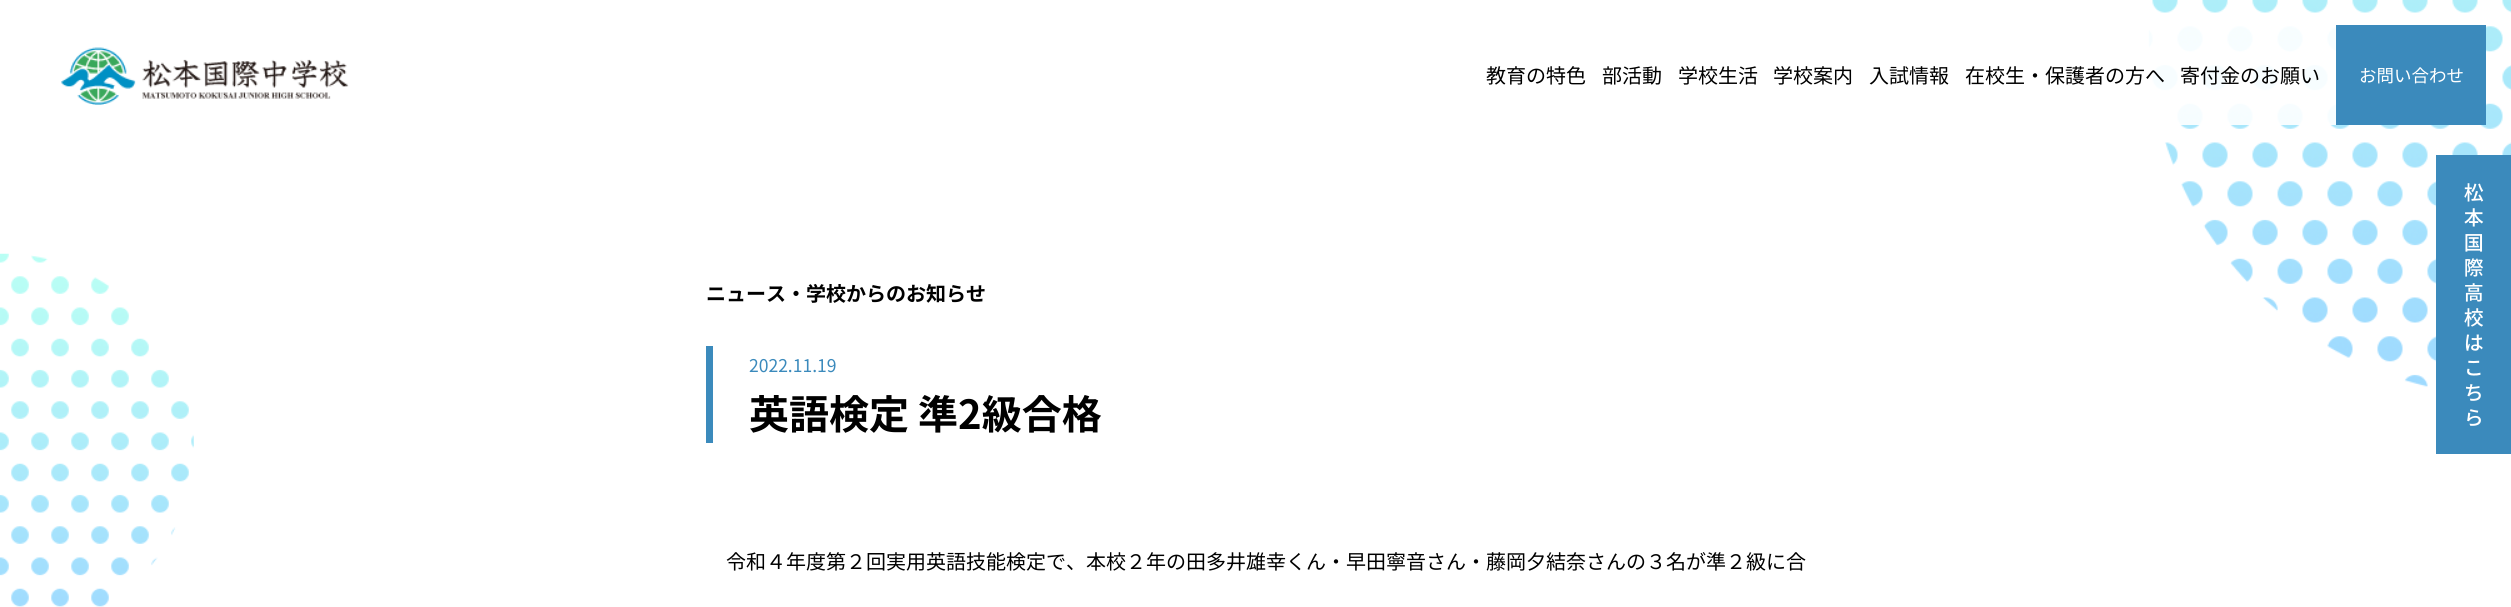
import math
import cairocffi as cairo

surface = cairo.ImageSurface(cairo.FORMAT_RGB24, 2511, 607)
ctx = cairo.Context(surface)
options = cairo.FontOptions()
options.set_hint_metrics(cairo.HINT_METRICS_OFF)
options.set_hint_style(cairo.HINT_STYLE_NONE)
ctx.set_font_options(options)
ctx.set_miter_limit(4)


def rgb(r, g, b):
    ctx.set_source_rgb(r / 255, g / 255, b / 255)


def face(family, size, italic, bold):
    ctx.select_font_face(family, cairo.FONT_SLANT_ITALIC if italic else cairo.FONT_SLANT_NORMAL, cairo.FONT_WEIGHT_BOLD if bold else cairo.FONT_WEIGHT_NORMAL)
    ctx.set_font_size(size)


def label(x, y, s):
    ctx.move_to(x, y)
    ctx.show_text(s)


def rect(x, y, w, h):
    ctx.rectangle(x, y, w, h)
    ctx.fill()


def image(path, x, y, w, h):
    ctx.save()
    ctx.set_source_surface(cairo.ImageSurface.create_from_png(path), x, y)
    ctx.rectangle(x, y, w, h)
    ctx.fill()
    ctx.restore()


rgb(255, 255, 255)
ctx.paint()
image('image1.png', 0, 0, 2511, 607)
ctx.set_source_rgba(1, 1, 1, 0.9)
rect(2148, 26, 188, 99)
image('image0.png', 61, 47, 288, 58)
face('Noto Sans JP', 20, 0, 0)
rgb(0, 0, 0)
label(1486, 83, '教育の特色')
label(1602, 83, '部活動')
label(1678, 83, '学校生活')
label(1773, 83, '学校案内')
label(1869, 83, '入試情報')
label(1965, 83, '在校生・保護者の方へ')
label(2180, 83, '寄付金のお願い')
rgb(59, 138, 188)
rect(2336, 25, 150, 100)
face('Noto Sans JP', 17.5, 0, 0)
rgb(255, 255, 255)
label(2359, 82, 'お問い合わせ')
face('Noto Sans JP', 20, 0, 1)
rgb(0, 0, 0)
label(706, 301, 'ニュース・学校からのお知らせ')
rgb(59, 138, 188)
rect(706, 346, 7, 97)
face('Noto Sans JP', 17.5, 0, 0)
label(749, 372, '2022.11.19')
face('Noto Sans JP', 40, 0, 1)
rgb(0, 0, 0)
label(749, 429, '英語検定 準2級合格')
face('Noto Sans JP', 20, 0, 0)
label(726, 569, '令和４年度第２回実用英語技能検定で、本校２年の田多井雄幸くん・早田寧音さん・藤岡夕結奈さんの３名が準２級に合')
image('image2.png', 2436, 155, 75, 299)
surface.write_to_png('render.png')
